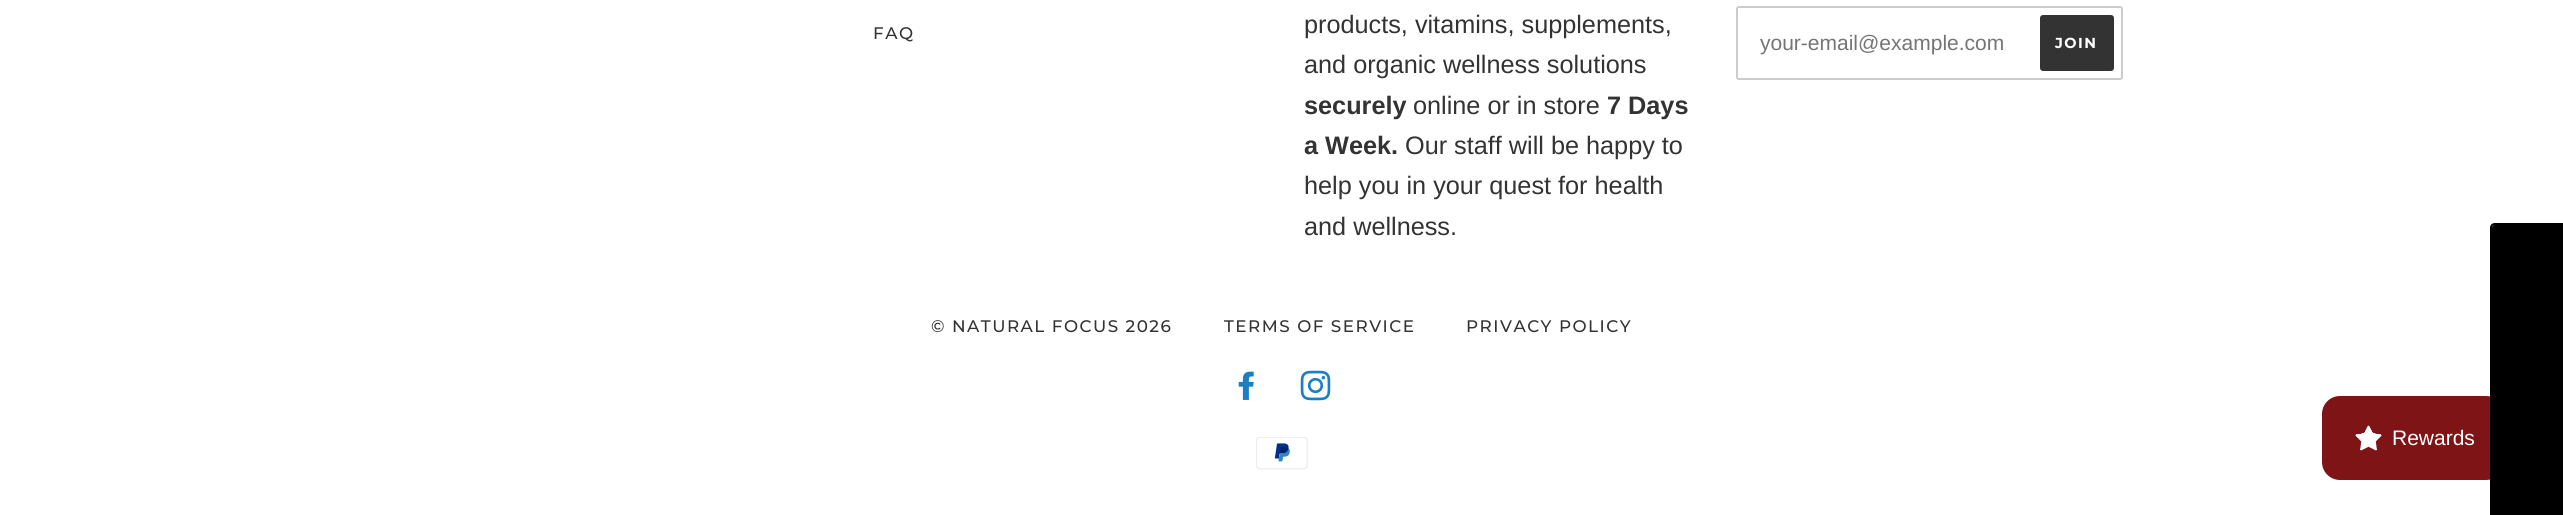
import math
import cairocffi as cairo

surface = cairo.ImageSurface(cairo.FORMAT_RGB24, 2563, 515)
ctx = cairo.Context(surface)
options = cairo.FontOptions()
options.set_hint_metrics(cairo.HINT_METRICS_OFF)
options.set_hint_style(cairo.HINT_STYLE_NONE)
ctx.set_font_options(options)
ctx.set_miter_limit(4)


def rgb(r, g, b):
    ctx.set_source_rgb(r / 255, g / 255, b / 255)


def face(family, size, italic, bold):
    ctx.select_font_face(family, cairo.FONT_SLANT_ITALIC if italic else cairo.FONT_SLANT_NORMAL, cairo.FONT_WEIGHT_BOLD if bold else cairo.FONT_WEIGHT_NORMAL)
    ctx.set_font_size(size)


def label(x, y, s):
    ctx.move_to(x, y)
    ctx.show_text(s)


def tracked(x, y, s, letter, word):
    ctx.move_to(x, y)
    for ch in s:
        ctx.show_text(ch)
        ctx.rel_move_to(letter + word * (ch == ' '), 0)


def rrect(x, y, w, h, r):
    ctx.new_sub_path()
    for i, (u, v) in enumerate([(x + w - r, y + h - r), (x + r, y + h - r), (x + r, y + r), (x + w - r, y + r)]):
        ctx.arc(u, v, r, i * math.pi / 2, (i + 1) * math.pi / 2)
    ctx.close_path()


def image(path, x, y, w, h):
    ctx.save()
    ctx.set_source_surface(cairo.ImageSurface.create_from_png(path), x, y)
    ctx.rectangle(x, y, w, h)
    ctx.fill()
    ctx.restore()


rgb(255, 255, 255)
ctx.paint()
face('Montserrat Medium', 16.75, 0, 0)
rgb(51, 51, 51)
tracked(873, 39, 'FAQ', 1.5, 0)
face('Arimo', 25.25, 0, 0)
label(1304, 33, 'products, vitamins, supplements,')
label(1304, 73, 'and organic wellness solutions')
face('Arimo', 25.25, 0, 1)
label(1304, 114, 'securely')
face('Arimo', 25.25, 0, 0)
label(1413, 114, 'online or in store')
face('Arimo', 25.25, 0, 1)
label(1607, 114, '7 Days')
label(1304, 154, 'a Week.')
face('Arimo', 25.25, 0, 0)
label(1405, 154, 'Our staff will be happy to')
label(1304, 194, 'help you in your quest for health')
label(1304, 235, 'and wellness.')
rrect(1737, 7, 385, 72, 2)
rgb(204, 204, 204)
ctx.stroke()
face('Arimo', 21, 0, 0)
rgb(117, 117, 117)
label(1760, 50, 'your-email@example.com')
rgb(51, 51, 51)
rrect(2040, 15, 74, 56, 3)
ctx.fill()
face('Montserrat', 14.5, 0, 1)
rgb(255, 255, 255)
tracked(2055, 48, 'JOIN', 1.5, 0)
face('Montserrat Medium', 16.75, 0, 0)
rgb(51, 51, 51)
tracked(931, 332, '© NATURAL FOCUS 2026', 1.5, 0)
tracked(1224, 332, 'TERMS OF SERVICE', 1.5, 0)
tracked(1466, 332, 'PRIVACY POLICY', 1.5, 0)
image('image0.png', 1238, 371, 16, 29)
image('image1.png', 1300, 370, 31, 31)
image('image2.png', 1256, 437, 52, 33)
rgb(127, 20, 22)
rrect(2322, 396, 182, 84, 18)
ctx.fill()
image('image3.png', 2355, 425, 27, 26)
face('Arimo', 21, 0, 0)
rgb(255, 255, 255)
label(2392, 445, 'Rewards')
rgb(0, 0, 0)
ctx.new_path()
ctx.move_to(2492, 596)
ctx.line_to(2492, 228)
ctx.curve_to(2492, 226, 2493, 225, 2495, 225)
ctx.line_to(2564, 225)
ctx.line_to(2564, 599)
ctx.line_to(2495, 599)
ctx.curve_to(2493, 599, 2492, 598, 2492, 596)
ctx.close_path()
ctx.fill()
ctx.set_fill_rule(cairo.FILL_RULE_EVEN_ODD)
ctx.new_path()
ctx.move_to(2490, 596)
ctx.line_to(2490, 228)
ctx.curve_to(2490, 225, 2492, 223, 2495, 223)
ctx.line_to(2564, 223)
ctx.line_to(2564, 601)
ctx.line_to(2495, 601)
ctx.curve_to(2492, 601, 2490, 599, 2490, 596)
ctx.close_path()
ctx.move_to(2492, 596)
ctx.line_to(2492, 228)
ctx.curve_to(2492, 226, 2493, 225, 2495, 225)
ctx.line_to(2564, 225)
ctx.line_to(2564, 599)
ctx.line_to(2495, 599)
ctx.curve_to(2493, 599, 2492, 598, 2492, 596)
ctx.close_path()
ctx.fill()
surface.write_to_png('render.png')
